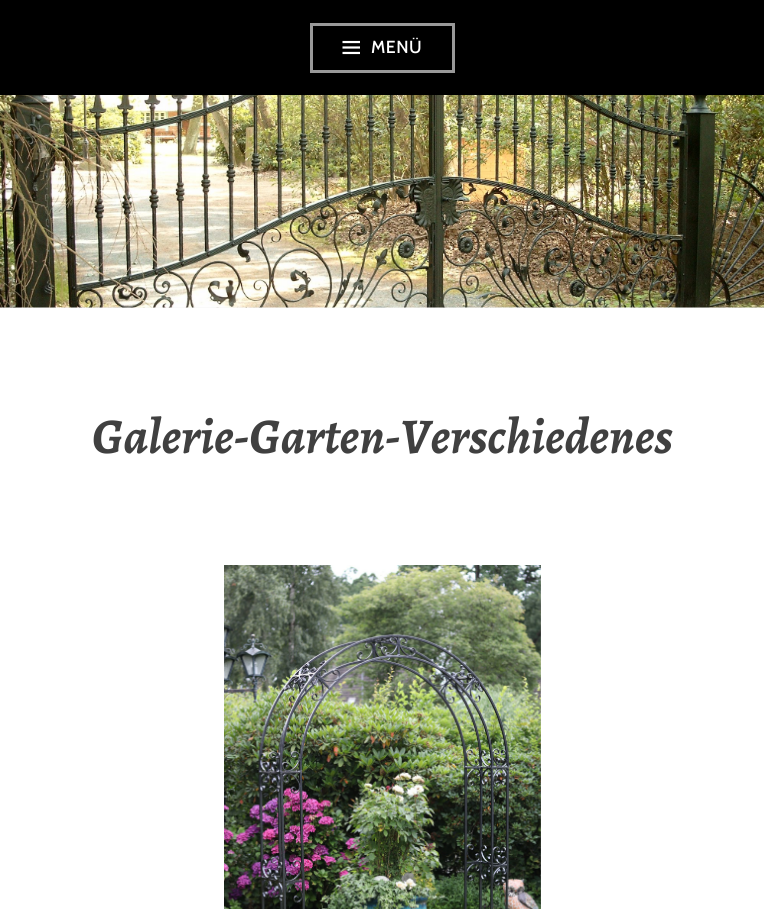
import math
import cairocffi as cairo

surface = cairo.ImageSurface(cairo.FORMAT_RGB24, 764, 909)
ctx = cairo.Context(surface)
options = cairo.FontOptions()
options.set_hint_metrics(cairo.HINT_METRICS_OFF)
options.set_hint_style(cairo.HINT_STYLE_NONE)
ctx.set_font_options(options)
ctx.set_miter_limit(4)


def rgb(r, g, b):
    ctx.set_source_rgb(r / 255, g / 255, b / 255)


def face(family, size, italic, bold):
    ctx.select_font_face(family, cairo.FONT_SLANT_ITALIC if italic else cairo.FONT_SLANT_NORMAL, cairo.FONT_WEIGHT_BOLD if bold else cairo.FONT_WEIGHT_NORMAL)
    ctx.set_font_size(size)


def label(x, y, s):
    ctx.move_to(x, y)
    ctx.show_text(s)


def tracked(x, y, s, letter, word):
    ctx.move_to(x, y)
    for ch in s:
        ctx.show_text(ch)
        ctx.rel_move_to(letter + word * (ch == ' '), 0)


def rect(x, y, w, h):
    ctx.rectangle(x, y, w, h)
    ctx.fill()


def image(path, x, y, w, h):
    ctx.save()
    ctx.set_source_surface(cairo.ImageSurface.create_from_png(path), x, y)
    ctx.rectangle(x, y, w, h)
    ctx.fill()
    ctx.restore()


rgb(255, 255, 255)
ctx.paint()
rgb(0, 0, 0)
rect(0, 0, 764, 95)
ctx.rectangle(311.5, 24.5, 142, 47)
rgb(153, 153, 153)
ctx.set_line_width(3)
ctx.stroke()
image('image0.png', 342, 40, 18, 15)
face('Cabin Medium', 17.5, 0, 0)
rgb(255, 255, 255)
tracked(371, 53, 'MENÜ', 0.5, 0)
rgb(247, 247, 247)
rect(0, 307, 764, 1)
image('image1.png', 0, 95, 764, 213)
face('Alegreya', 50, 1, 1)
rgb(64, 64, 64)
label(92, 453, 'Galerie-Garten-Verschiedenes')
image('image2.png', 224, 565, 317, 344)
surface.write_to_png('render.png')
